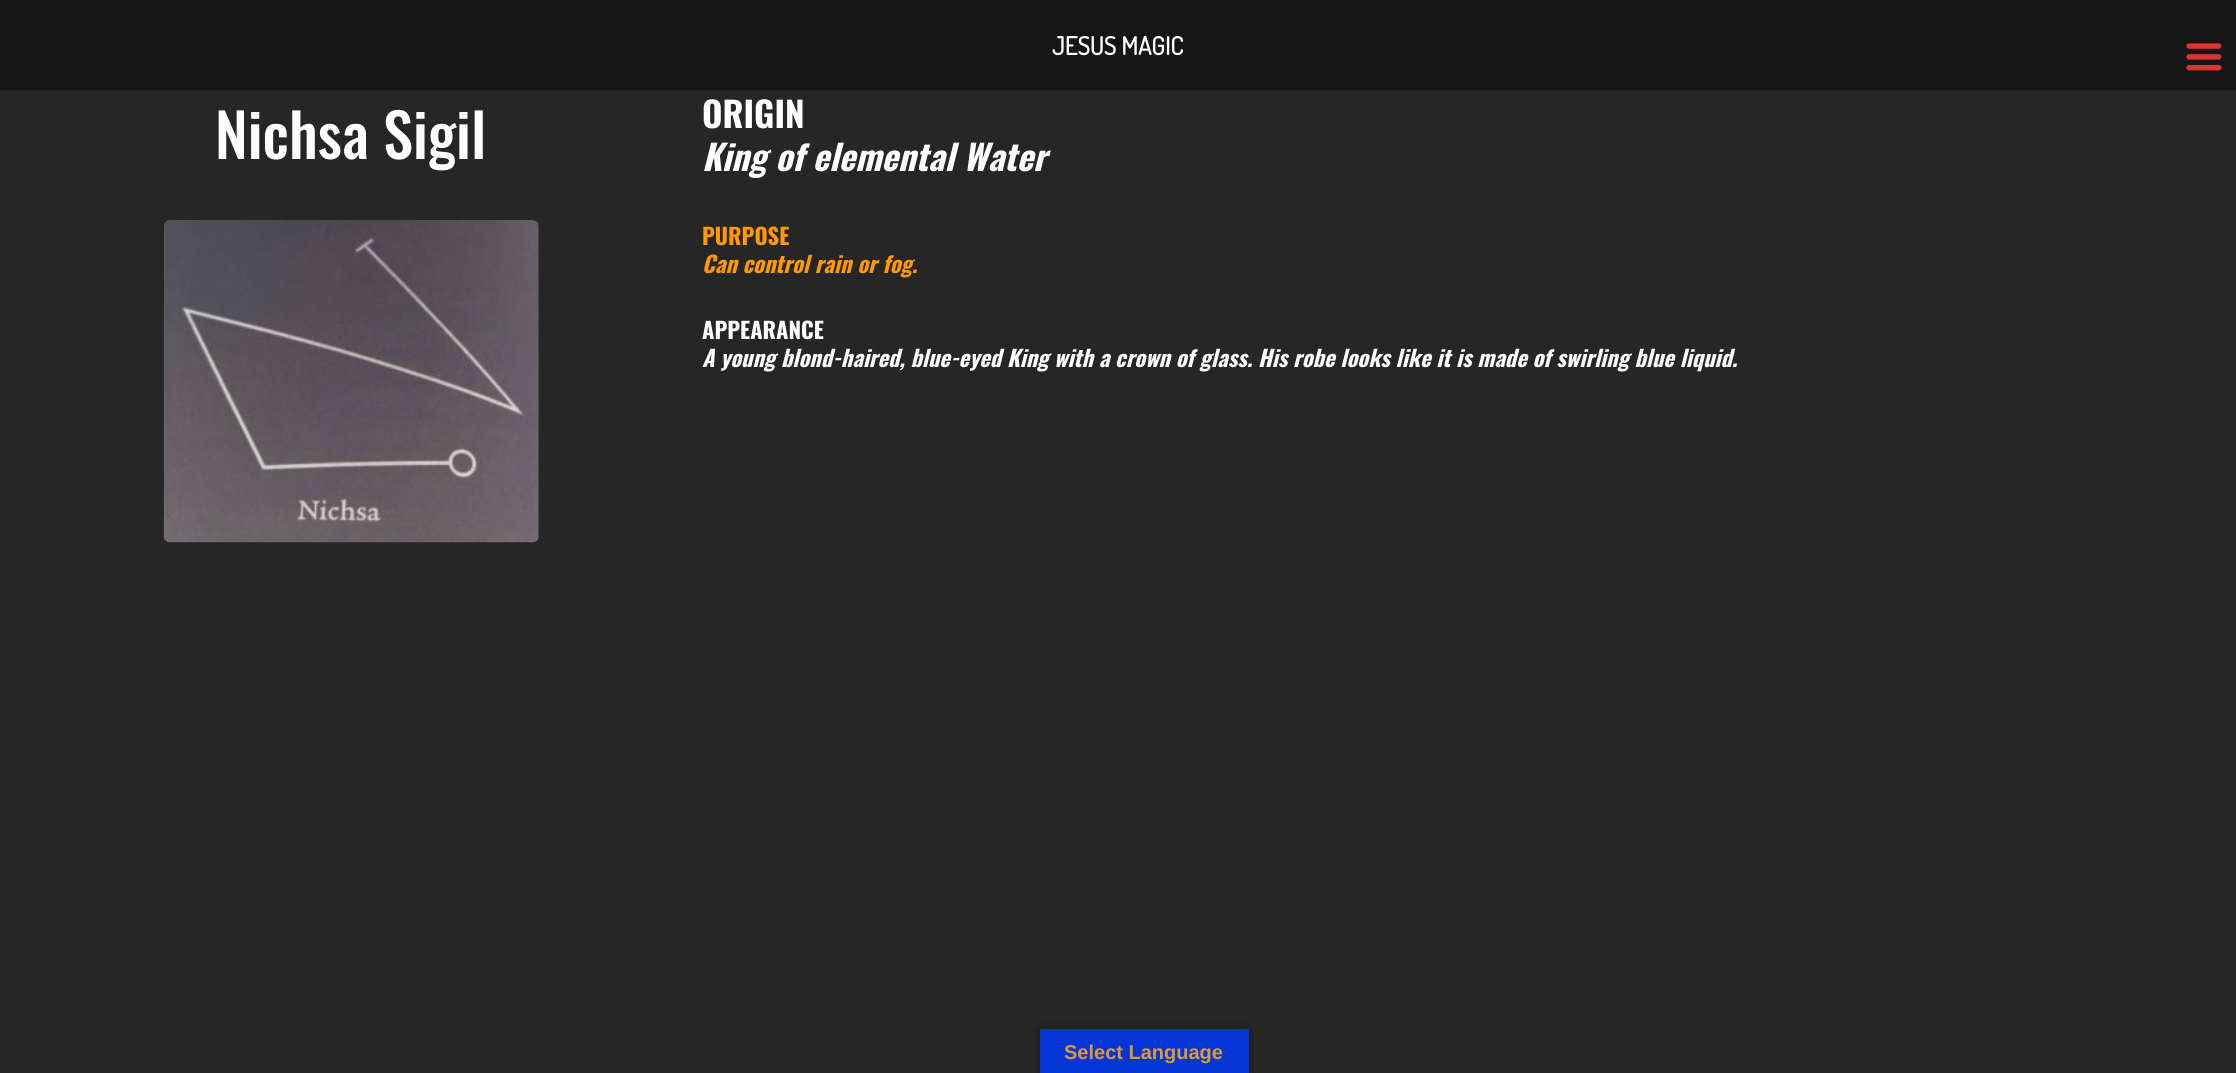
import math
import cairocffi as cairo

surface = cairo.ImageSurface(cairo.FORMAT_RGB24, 2236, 1073)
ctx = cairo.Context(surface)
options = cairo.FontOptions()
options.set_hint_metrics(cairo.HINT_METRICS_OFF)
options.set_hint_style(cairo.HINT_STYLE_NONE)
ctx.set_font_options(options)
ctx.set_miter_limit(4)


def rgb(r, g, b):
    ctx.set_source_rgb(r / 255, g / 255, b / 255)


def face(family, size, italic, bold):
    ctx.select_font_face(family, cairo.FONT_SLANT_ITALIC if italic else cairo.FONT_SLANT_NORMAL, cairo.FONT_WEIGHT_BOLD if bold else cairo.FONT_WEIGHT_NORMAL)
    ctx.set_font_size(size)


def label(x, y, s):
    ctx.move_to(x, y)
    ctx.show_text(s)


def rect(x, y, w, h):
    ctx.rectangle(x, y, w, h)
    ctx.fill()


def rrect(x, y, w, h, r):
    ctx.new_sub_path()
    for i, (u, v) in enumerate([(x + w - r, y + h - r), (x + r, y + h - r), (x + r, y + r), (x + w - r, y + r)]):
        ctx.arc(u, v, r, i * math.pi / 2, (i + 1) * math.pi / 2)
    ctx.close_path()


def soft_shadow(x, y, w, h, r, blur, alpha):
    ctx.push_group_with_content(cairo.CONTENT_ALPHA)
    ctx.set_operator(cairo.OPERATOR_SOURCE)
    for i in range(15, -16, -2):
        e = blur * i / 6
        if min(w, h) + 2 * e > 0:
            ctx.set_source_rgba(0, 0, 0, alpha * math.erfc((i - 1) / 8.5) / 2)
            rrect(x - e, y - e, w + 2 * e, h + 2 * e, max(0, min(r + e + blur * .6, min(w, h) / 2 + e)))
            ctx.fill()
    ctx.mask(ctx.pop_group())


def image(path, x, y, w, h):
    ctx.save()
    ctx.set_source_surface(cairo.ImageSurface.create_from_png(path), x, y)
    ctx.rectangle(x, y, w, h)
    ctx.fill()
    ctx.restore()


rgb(38, 38, 38)
ctx.paint()
rgb(22, 22, 22)
rect(0, 0, 2236, 90)
face('Dosis', 25, 0, 1)
rgb(255, 255, 255)
label(1052, 55, 'JESUS MAGIC')
image('image0.png', 2186, 43, 36, 28)
face('Oswald Medium', 60, 0, 0)
label(215, 159, 'Nichsa Sigil')
image('image1.png', 163, 220, 376, 323)
face('Oswald', 35, 0, 1)
label(702, 128, 'ORIGIN')
face('Oswald', 35, 1, 1)
label(702, 171, 'King of elemental Water')
face('Oswald', 22.5, 0, 1)
rgb(255, 153, 0)
label(702, 245, 'PURPOSE')
face('Oswald', 22.5, 1, 1)
label(702, 273, 'Can control rain or fog.')
face('Oswald', 22.5, 0, 1)
rgb(255, 255, 255)
label(702, 339, 'APPEARANCE')
face('Oswald', 22.5, 1, 1)
label(702, 367, 'A young blond-haired, blue-eyed King with a crown of glass. His robe looks like it is made of swirling blue liquid.')
rgb(0, 0, 0)
soft_shadow(1040, 1029, 209, 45, 0, 5.5, 0.3)
rgb(4, 53, 214)
rect(1040, 1029, 209, 44)
face('Liberation Sans', 20, 0, 1)
rgb(221, 153, 51)
label(1064, 1059, 'Select Language')
surface.write_to_png('render.png')
